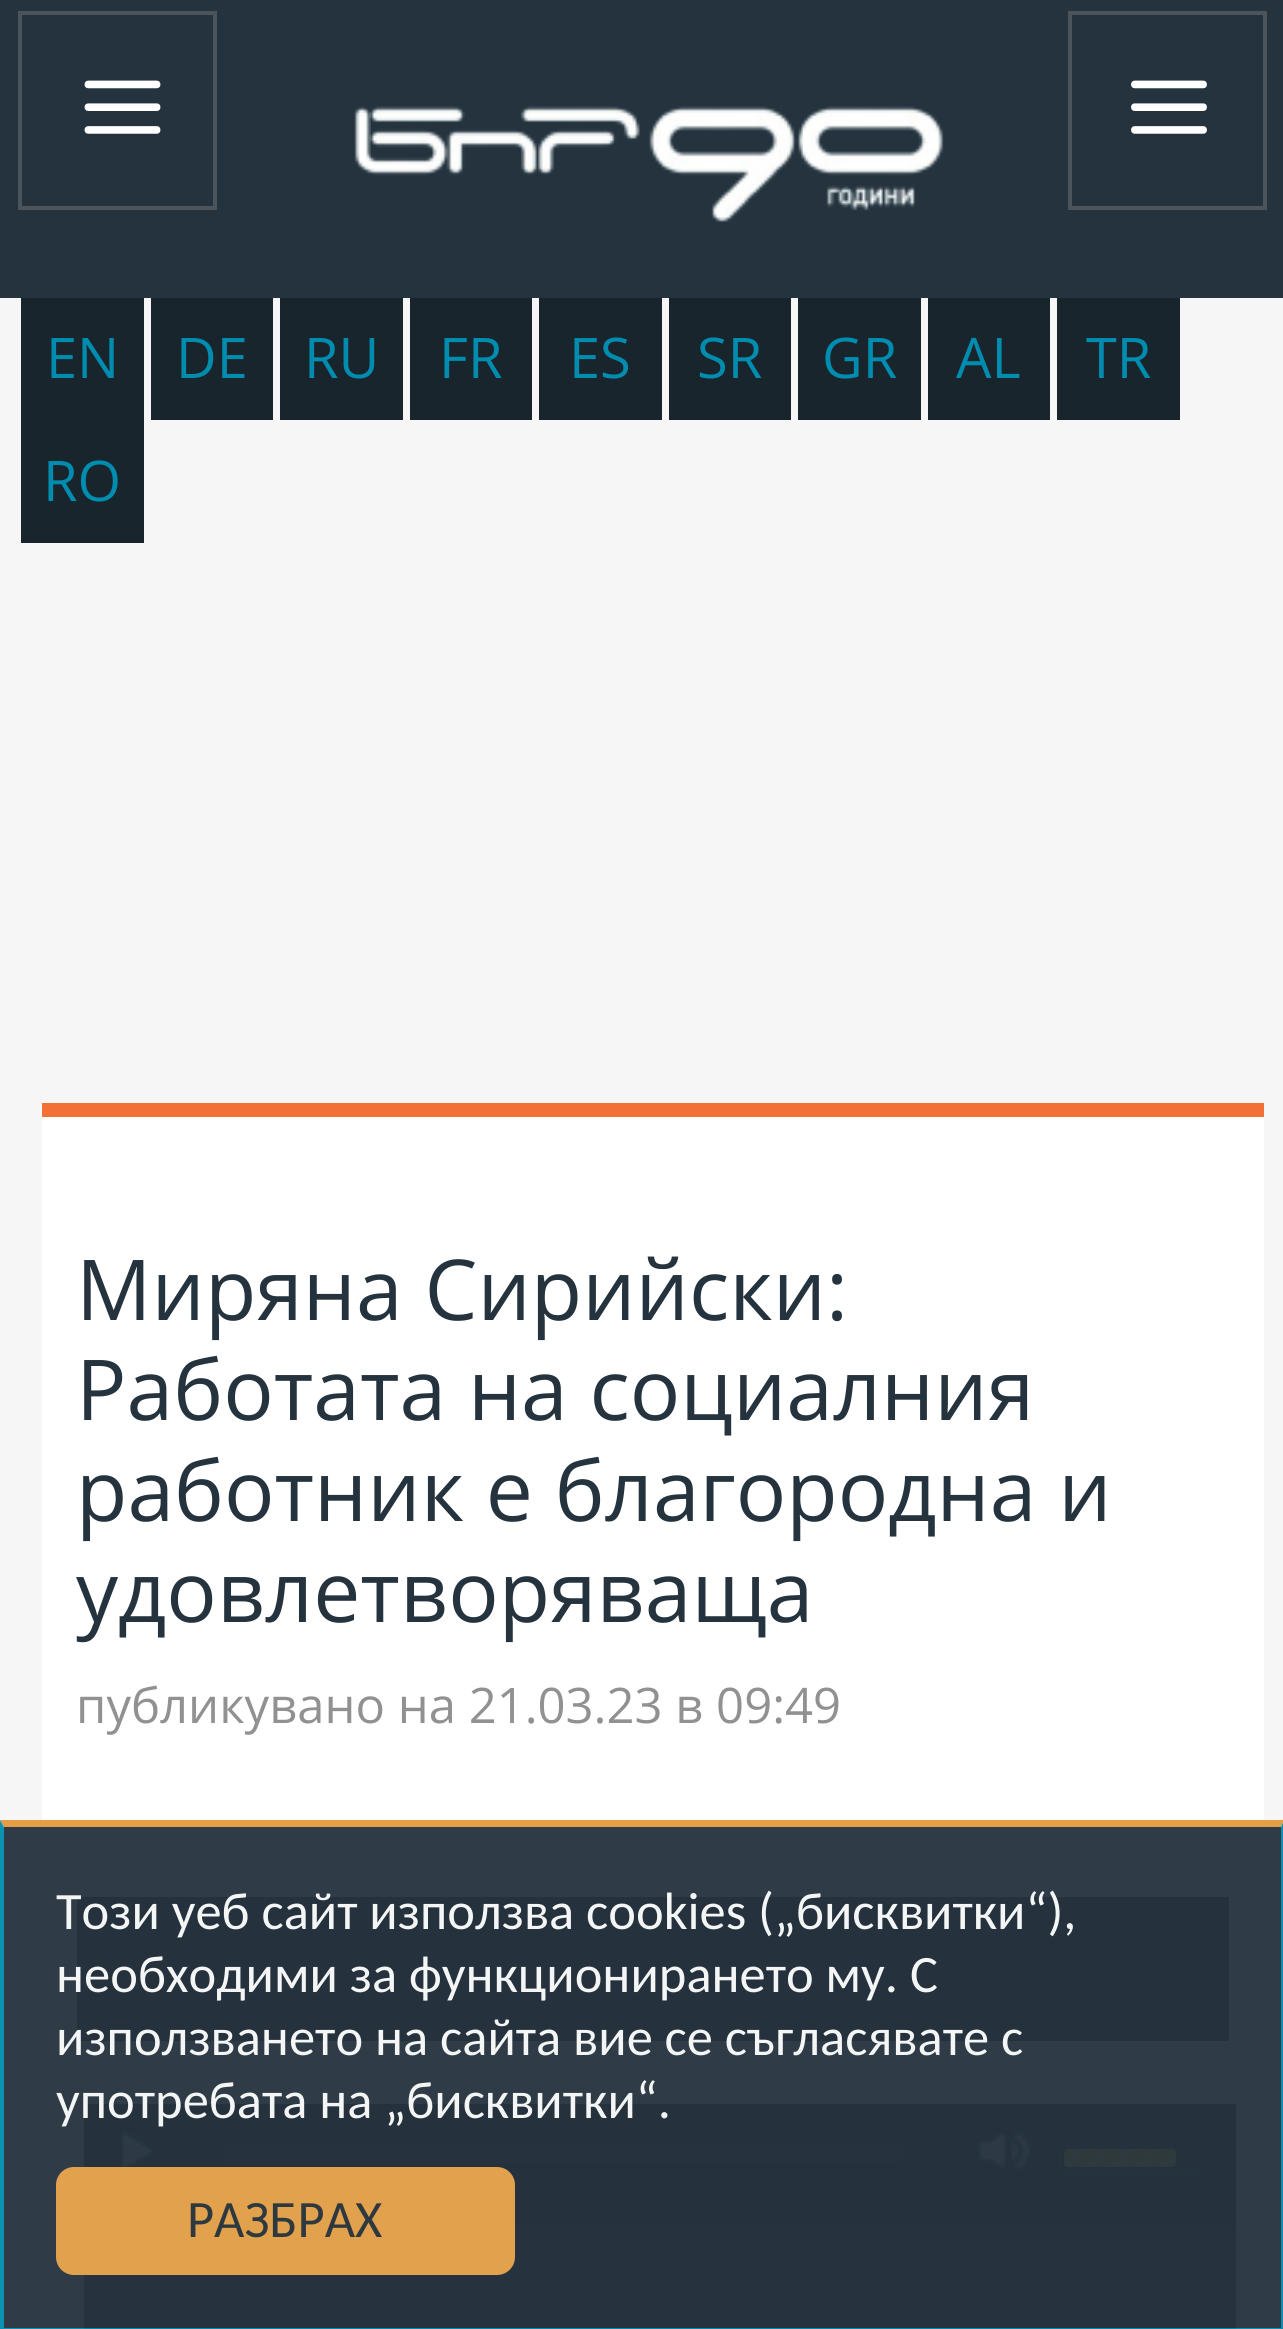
import math
import cairocffi as cairo

surface = cairo.ImageSurface(cairo.FORMAT_RGB24, 1283, 2329)
ctx = cairo.Context(surface)
options = cairo.FontOptions()
options.set_hint_metrics(cairo.HINT_METRICS_OFF)
options.set_hint_style(cairo.HINT_STYLE_NONE)
ctx.set_font_options(options)
ctx.set_miter_limit(4)


def rgb(r, g, b):
    ctx.set_source_rgb(r / 255, g / 255, b / 255)


def face(family, size, italic, bold):
    ctx.select_font_face(family, cairo.FONT_SLANT_ITALIC if italic else cairo.FONT_SLANT_NORMAL, cairo.FONT_WEIGHT_BOLD if bold else cairo.FONT_WEIGHT_NORMAL)
    ctx.set_font_size(size)


def label(x, y, s):
    ctx.move_to(x, y)
    ctx.show_text(s)


def rect(x, y, w, h):
    ctx.rectangle(x, y, w, h)
    ctx.fill()


def rrect(x, y, w, h, r):
    ctx.new_sub_path()
    for i, (u, v) in enumerate([(x + w - r, y + h - r), (x + r, y + h - r), (x + r, y + r), (x + w - r, y + r)]):
        ctx.arc(u, v, r, i * math.pi / 2, (i + 1) * math.pi / 2)
    ctx.close_path()


def soft_shadow(x, y, w, h, r, blur, alpha):
    ctx.push_group_with_content(cairo.CONTENT_ALPHA)
    ctx.set_operator(cairo.OPERATOR_SOURCE)
    for i in range(15, -16, -2):
        e = blur * i / 6
        if min(w, h) + 2 * e > 0:
            ctx.set_source_rgba(0, 0, 0, alpha * math.erfc((i - 1) / 8.5) / 2)
            rrect(x - e, y - e, w + 2 * e, h + 2 * e, max(0, min(r + e + blur * .6, min(w, h) / 2 + e)))
            ctx.fill()
    ctx.mask(ctx.pop_group())


def image(path, x, y, w, h):
    ctx.save()
    ctx.set_source_surface(cairo.ImageSurface.create_from_png(path), x, y)
    ctx.rectangle(x, y, w, h)
    ctx.fill()
    ctx.restore()


rgb(246, 246, 246)
ctx.paint()
rgb(37, 51, 62)
rect(0, 0, 1283, 298)
image('image0.png', 354, 106, 590, 116)
ctx.rectangle(20, 13, 195, 195)
rgb(75, 84, 90)
ctx.set_line_width(4)
ctx.stroke()
image('image1.png', 84, 80, 77, 54)
ctx.rectangle(1070, 13, 195, 195)
ctx.stroke()
image('image2.png', 1131, 80, 76, 54)
rgb(24, 37, 45)
rect(21, 298, 123, 245)
face('Open Sans', 56, 0, 0)
rgb(0, 140, 175)
label(46, 378, 'EN')
rgb(24, 37, 45)
rect(151, 298, 122, 122)
rgb(0, 140, 175)
label(176, 378, 'DE')
rgb(24, 37, 45)
rect(280, 298, 123, 122)
rgb(0, 140, 175)
label(304, 378, 'RU')
rgb(24, 37, 45)
rect(410, 298, 122, 122)
rgb(0, 140, 175)
label(439, 378, 'FR')
rgb(24, 37, 45)
rect(539, 298, 123, 122)
rgb(0, 140, 175)
label(569, 378, 'ES')
rgb(24, 37, 45)
rect(669, 298, 122, 122)
rgb(0, 140, 175)
label(697, 378, 'SR')
rgb(24, 37, 45)
rect(798, 298, 123, 122)
rgb(0, 140, 175)
label(822, 378, 'GR')
rgb(24, 37, 45)
rect(928, 298, 122, 122)
rgb(0, 140, 175)
label(956, 378, 'AL')
rgb(24, 37, 45)
rect(1057, 298, 123, 122)
rgb(0, 140, 175)
label(1086, 378, 'TR')
label(43, 501, 'RO')
rgb(255, 255, 255)
rect(42, 1117, 1222, 1212)
rgb(242, 111, 53)
rect(42, 1103, 1222, 14)
face('Open Sans', 84, 0, 0)
rgb(37, 51, 62)
label(76, 1320, 'Миряна Сирийски:')
label(76, 1420, 'Работата на социалния')
label(76, 1521, 'работник е благородна и')
label(76, 1622, 'удовлетворяваща')
face('Open Sans', 49, 0, 0)
rgb(145, 145, 145)
label(76, 1723, 'публикувано на 21.03.23 в 09:49')
rgb(37, 51, 62)
rect(77, 1897, 1152, 144)
rgb(0, 0, 0)
soft_shadow(84, 2230, 1152, 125, 11, 5, 0.25)
rgb(37, 51, 62)
rect(84, 2104, 1152, 122)
image('image3.png', 119, 2131, 36, 41)
image('image4.png', 978, 2131, 53, 42)
rgb(255, 255, 255)
soft_shadow(1061, 2149, 140, 25, 4, 2, 0.1)
rgb(38, 41, 41)
rrect(1061, 2146, 140, 24, 4)
ctx.fill()
rgb(252, 197, 0)
rrect(1064, 2149, 112, 18, 4)
ctx.fill()
gradient = cairo.LinearGradient(1089, 2174, 1064, 2149)
gradient.add_color_stop_rgba(0.25, 1, 1, 1, 0.3)
gradient.add_color_stop_rgba(0.25, 1, 1, 1, 0)
gradient.add_color_stop_rgba(0.5, 1, 1, 1, 0)
gradient.add_color_stop_rgba(0.5, 1, 1, 1, 0.3)
gradient.add_color_stop_rgba(0.75, 1, 1, 1, 0.3)
gradient.add_color_stop_rgba(0.75, 1, 1, 1, 0)
gradient.add_color_stop_rgba(1, 0, 0, 0, 0)
ctx.set_source(gradient)
ctx.new_path()
ctx.move_to(1068, 2149)
ctx.line_to(1089, 2149)
ctx.line_to(1089, 2167)
ctx.line_to(1068, 2167)
ctx.curve_to(1066, 2167, 1064, 2165, 1064, 2163)
ctx.line_to(1064, 2153)
ctx.curve_to(1064, 2151, 1066, 2149, 1068, 2149)
ctx.close_path()
ctx.fill()
gradient = cairo.LinearGradient(1113, 2174, 1089, 2149)
gradient.add_color_stop_rgba(0.25, 0.992, 0.839, 0.302, 1)
gradient.add_color_stop_rgba(0.25, 0.988, 0.773, 0, 1)
gradient.add_color_stop_rgba(0.5, 0.988, 0.773, 0, 1)
gradient.add_color_stop_rgba(0.5, 0.992, 0.839, 0.302, 1)
gradient.add_color_stop_rgba(0.75, 0.992, 0.839, 0.302, 1)
gradient.add_color_stop_rgba(0.75, 0.988, 0.773, 0, 1)
gradient.add_color_stop_rgba(1, 0.988, 0.773, 0, 1)
ctx.set_source(gradient)
rect(1089, 2149, 24, 18)
gradient = cairo.LinearGradient(1138, 2174, 1113, 2149)
gradient.add_color_stop_rgba(0.25, 0.992, 0.839, 0.302, 1)
gradient.add_color_stop_rgba(0.25, 0.988, 0.773, 0, 1)
gradient.add_color_stop_rgba(0.5, 0.988, 0.773, 0, 1)
gradient.add_color_stop_rgba(0.5, 0.992, 0.839, 0.302, 1)
gradient.add_color_stop_rgba(0.75, 0.992, 0.839, 0.302, 1)
gradient.add_color_stop_rgba(0.75, 0.988, 0.773, 0, 1)
gradient.add_color_stop_rgba(1, 0.988, 0.773, 0, 1)
ctx.set_source(gradient)
rect(1113, 2149, 25, 18)
gradient = cairo.LinearGradient(1162, 2174, 1138, 2149)
gradient.add_color_stop_rgba(0.25, 0.992, 0.839, 0.302, 1)
gradient.add_color_stop_rgba(0.25, 0.988, 0.773, 0, 1)
gradient.add_color_stop_rgba(0.5, 0.988, 0.773, 0, 1)
gradient.add_color_stop_rgba(0.5, 0.992, 0.839, 0.302, 1)
gradient.add_color_stop_rgba(0.75, 0.992, 0.839, 0.302, 1)
gradient.add_color_stop_rgba(0.75, 0.988, 0.773, 0, 1)
gradient.add_color_stop_rgba(1, 0.988, 0.773, 0, 1)
ctx.set_source(gradient)
rect(1138, 2149, 24, 18)
gradient = cairo.LinearGradient(1187, 2174, 1162, 2149)
gradient.add_color_stop_rgba(0.25, 1, 1, 1, 0.3)
gradient.add_color_stop_rgba(0.25, 1, 1, 1, 0)
gradient.add_color_stop_rgba(0.5, 1, 1, 1, 0)
gradient.add_color_stop_rgba(0.5, 1, 1, 1, 0.3)
gradient.add_color_stop_rgba(0.75, 1, 1, 1, 0.3)
gradient.add_color_stop_rgba(0.75, 1, 1, 1, 0)
gradient.add_color_stop_rgba(1, 0, 0, 0, 0)
ctx.set_source(gradient)
ctx.new_path()
ctx.move_to(1162, 2149)
ctx.line_to(1172, 2149)
ctx.curve_to(1174, 2149, 1176, 2151, 1176, 2153)
ctx.line_to(1176, 2163)
ctx.curve_to(1176, 2165, 1174, 2167, 1172, 2167)
ctx.line_to(1162, 2167)
ctx.close_path()
ctx.fill()
rgb(70, 72, 73)
rrect(224, 2146, 679, 17, 4)
ctx.fill()
rgb(58, 59, 60)
rect(84, 2226, 1152, 103)
ctx.set_source_rgba(0.145, 0.2, 0.243, 0.95)
rect(4, 1827, 1277, 501)
ctx.set_source_rgba(0.89, 0.608, 0.239, 0.95)
ctx.new_path()
ctx.move_to(0, 1820)
ctx.line_to(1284, 1820)
ctx.line_to(1281, 1827)
ctx.line_to(4, 1827)
ctx.close_path()
ctx.fill()
rgb(12, 145, 179)
ctx.new_path()
ctx.move_to(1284, 1820)
ctx.line_to(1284, 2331)
ctx.line_to(1281, 2328)
ctx.line_to(1281, 1827)
ctx.close_path()
ctx.fill()
ctx.set_source_rgba(0, 0.549, 0.686, 0.95)
rect(0, 2328, 1283, 1)
rgb(12, 145, 179)
ctx.new_path()
ctx.move_to(0, 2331)
ctx.line_to(0, 1820)
ctx.line_to(4, 1827)
ctx.line_to(4, 2328)
ctx.close_path()
ctx.fill()
face('Carlito', 52.5, 0, 0)
rgb(244, 245, 245)
label(56, 1929, 'Този уеб сайт използва cookies („бисквитки“),')
label(56, 1992, 'необходими за функционирането му. С')
label(56, 2055, 'използването на сайта вие се съгласявате с')
label(56, 2118, 'употребата на „бисквитки“.')
ctx.set_source_rgba(0.925, 0.655, 0.306, 0.95)
rrect(56, 2167, 459, 108, 18)
ctx.fill()
rgb(46, 57, 63)
label(187, 2237, 'РАЗБРАХ')
surface.write_to_png('render.png')
